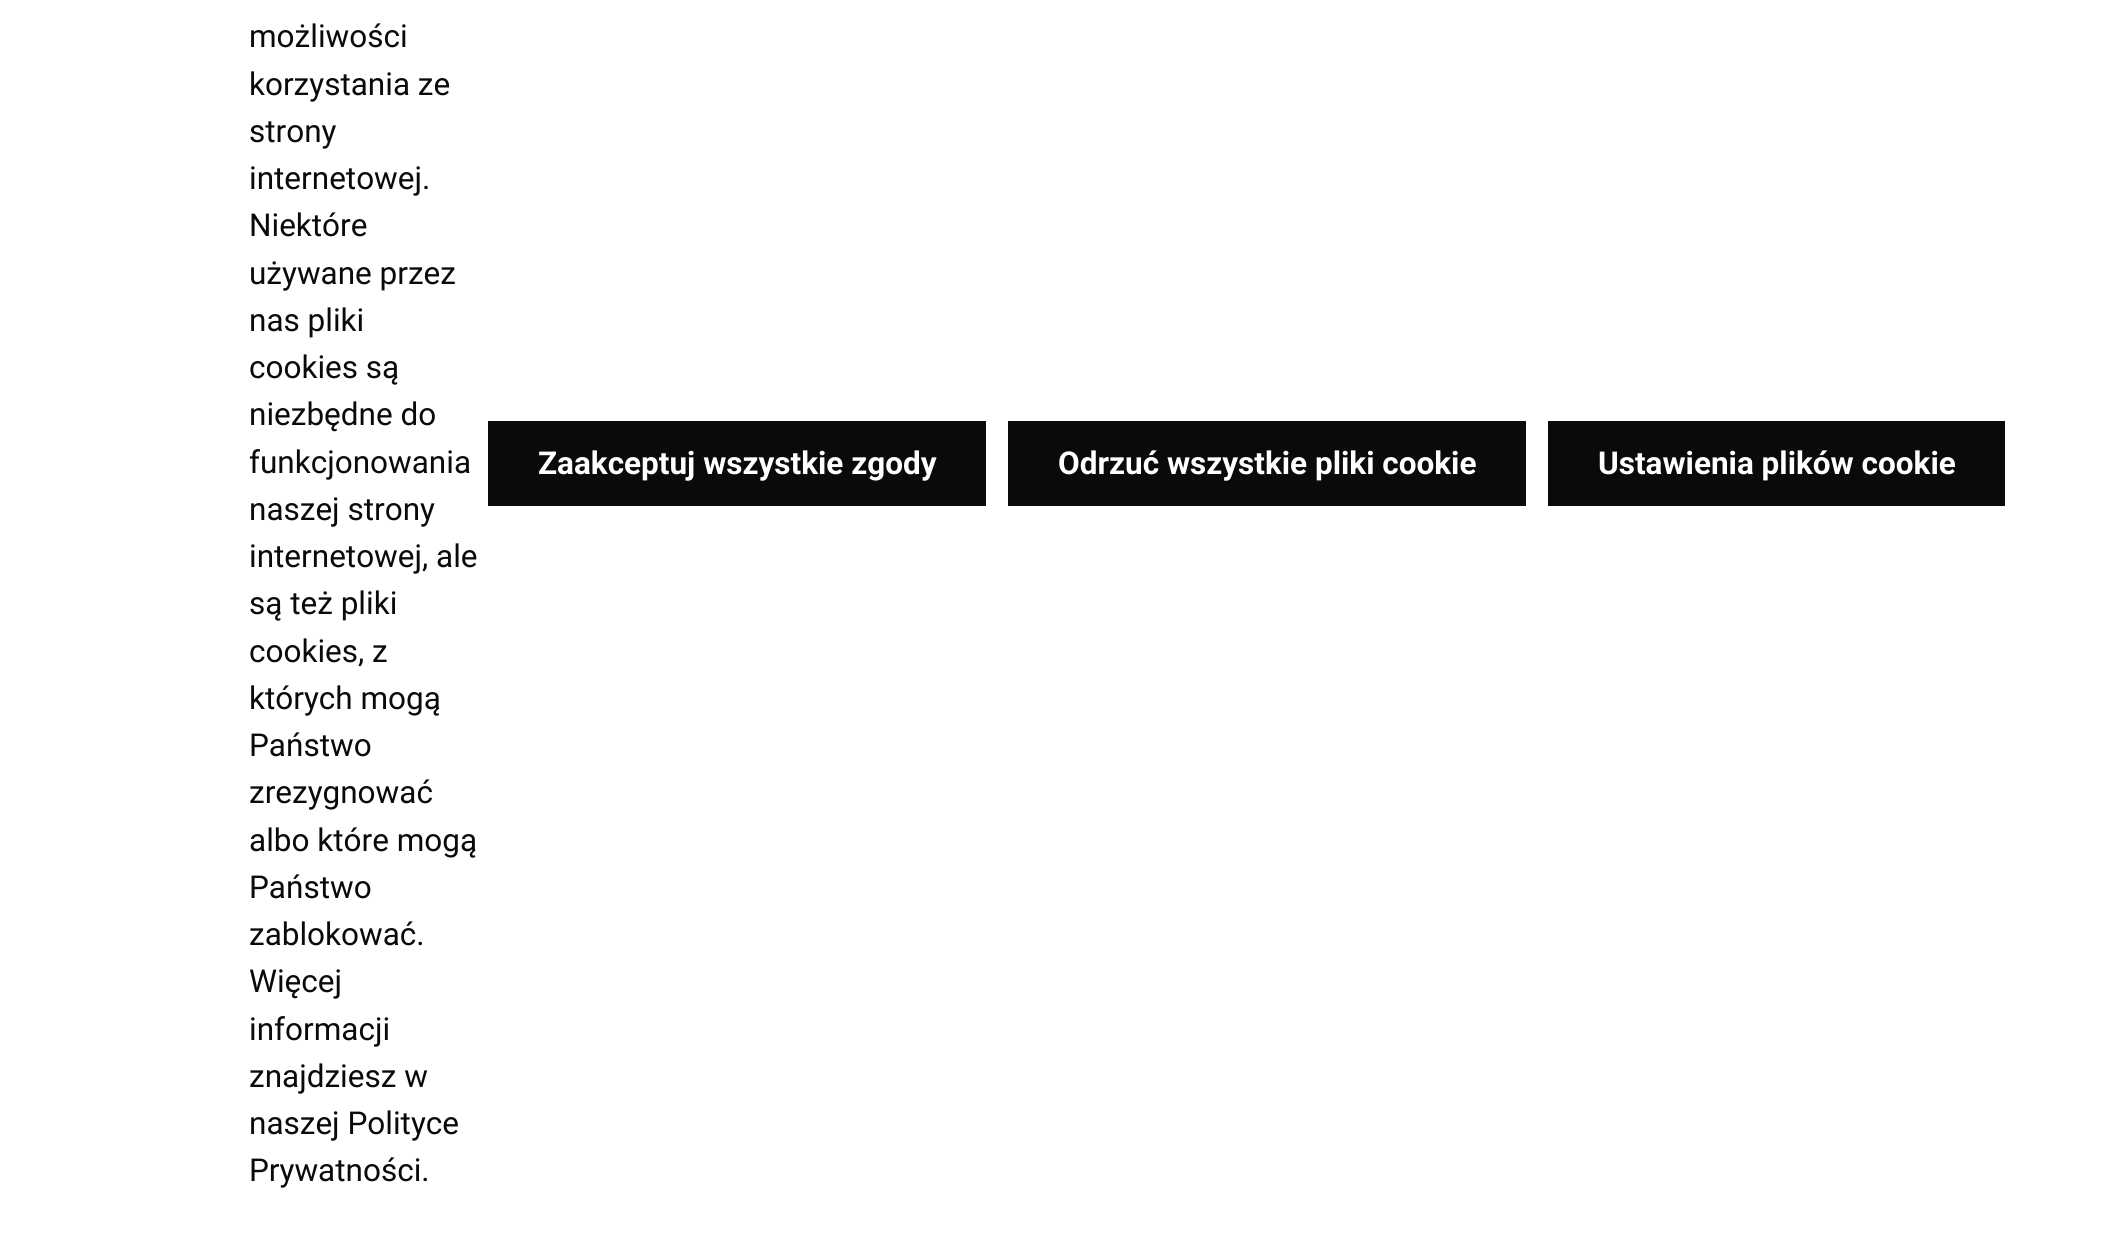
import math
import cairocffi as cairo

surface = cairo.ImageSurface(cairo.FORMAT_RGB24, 2116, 1259)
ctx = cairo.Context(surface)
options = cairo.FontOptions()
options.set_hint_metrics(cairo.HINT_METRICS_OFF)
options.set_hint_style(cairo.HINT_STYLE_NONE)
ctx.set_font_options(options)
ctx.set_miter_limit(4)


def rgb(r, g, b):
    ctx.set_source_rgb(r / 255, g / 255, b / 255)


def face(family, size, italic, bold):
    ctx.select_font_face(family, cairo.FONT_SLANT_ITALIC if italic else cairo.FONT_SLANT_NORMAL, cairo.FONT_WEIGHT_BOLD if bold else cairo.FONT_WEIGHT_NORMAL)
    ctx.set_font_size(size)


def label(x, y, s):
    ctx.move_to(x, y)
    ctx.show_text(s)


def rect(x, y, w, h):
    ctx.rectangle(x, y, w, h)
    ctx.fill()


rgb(255, 255, 255)
ctx.paint()
face('Roboto', 31.5, 0, 0)
rgb(10, 10, 10)
label(249, 47, 'możliwości')
label(249, 95, 'korzystania ze')
label(249, 142, 'strony')
label(249, 189, 'internetowej.')
label(249, 236, 'Niektóre')
label(249, 284, 'używane przez')
label(249, 331, 'nas pliki')
label(249, 378, 'cookies są')
label(249, 425, 'niezbędne do')
label(249, 473, 'funkcjonowania')
label(249, 520, 'naszej strony')
label(249, 567, 'internetowej, ale')
label(249, 614, 'są też pliki')
label(249, 662, 'cookies, z')
label(249, 709, 'których mogą')
label(249, 756, 'Państwo')
label(249, 803, 'zrezygnować')
label(249, 851, 'albo które mogą')
label(249, 898, 'Państwo')
label(249, 945, 'zablokować.')
label(249, 992, 'Więcej')
label(249, 1040, 'informacji')
label(249, 1087, 'znajdziesz w')
label(249, 1134, 'naszej Polityce')
label(249, 1181, 'Prywatności.')
rect(488, 421, 498, 85)
face('Roboto', 31.5, 0, 1)
rgb(255, 255, 255)
label(538, 474, 'Zaakceptuj wszystkie zgody')
rgb(10, 10, 10)
rect(1008, 421, 518, 85)
rgb(255, 255, 255)
label(1058, 474, 'Odrzuć wszystkie pliki cookie')
rgb(10, 10, 10)
rect(1548, 421, 457, 85)
rgb(255, 255, 255)
label(1598, 474, 'Ustawienia plików cookie')
surface.write_to_png('render.png')
